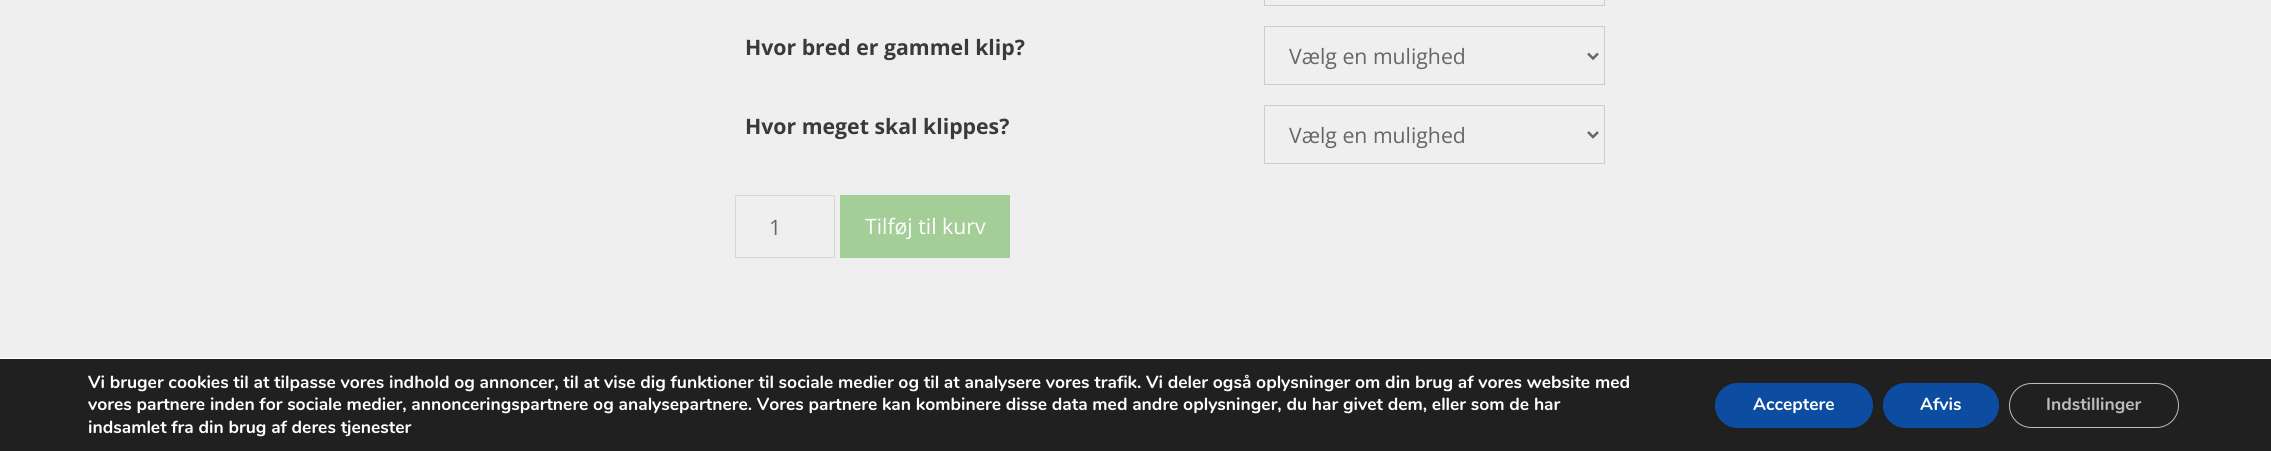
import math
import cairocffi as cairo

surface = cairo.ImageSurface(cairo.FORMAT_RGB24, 2271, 451)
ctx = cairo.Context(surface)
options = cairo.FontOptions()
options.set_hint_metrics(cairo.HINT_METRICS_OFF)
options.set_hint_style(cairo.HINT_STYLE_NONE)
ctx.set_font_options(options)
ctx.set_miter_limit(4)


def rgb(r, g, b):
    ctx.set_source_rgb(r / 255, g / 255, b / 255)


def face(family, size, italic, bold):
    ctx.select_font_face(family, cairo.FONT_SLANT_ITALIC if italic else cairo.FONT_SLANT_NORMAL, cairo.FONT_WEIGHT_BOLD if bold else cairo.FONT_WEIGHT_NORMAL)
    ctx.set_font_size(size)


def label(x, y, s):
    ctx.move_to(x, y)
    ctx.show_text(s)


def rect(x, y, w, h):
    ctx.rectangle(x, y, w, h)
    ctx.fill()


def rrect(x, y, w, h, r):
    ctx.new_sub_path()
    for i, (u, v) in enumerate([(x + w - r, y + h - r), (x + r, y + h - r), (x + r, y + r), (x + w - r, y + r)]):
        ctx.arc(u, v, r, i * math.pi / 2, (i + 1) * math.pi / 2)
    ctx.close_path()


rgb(239, 239, 239)
ctx.paint()
ctx.rectangle(1264.5, -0.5, 340, 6)
rgb(204, 204, 204)
ctx.set_line_width(1)
ctx.stroke()
face('Open Sans', 21.25, 0, 1)
rgb(58, 58, 58)
label(745, 55, 'Hvor bred er gammel klip?')
ctx.rectangle(1264.5, 26.5, 340, 58)
rgb(204, 204, 204)
ctx.stroke()
ctx.new_path()
ctx.move_to(1588, 53.5)
ctx.line_to(1593, 58.5)
ctx.line_to(1598, 53.5)
rgb(102, 102, 102)
ctx.set_line_width(2.5)
ctx.stroke()
face('Open Sans', 21.25, 0, 0)
label(1289, 64, 'Vælg en mulighed')
face('Open Sans', 21.25, 0, 1)
rgb(58, 58, 58)
label(745, 134, 'Hvor meget skal klippes?')
ctx.rectangle(1264.5, 105.5, 340, 58)
rgb(204, 204, 204)
ctx.set_line_width(1)
ctx.stroke()
ctx.new_path()
ctx.move_to(1588, 132)
ctx.line_to(1593, 137)
ctx.line_to(1598, 132)
rgb(102, 102, 102)
ctx.set_line_width(2.5)
ctx.stroke()
face('Open Sans', 21.25, 0, 0)
label(1289, 143, 'Vælg en mulighed')
ctx.rectangle(735.5, 195.5, 99, 62)
rgb(215, 215, 215)
ctx.set_line_width(1)
ctx.stroke()
rgb(102, 102, 102)
label(769, 235, '1')
rgb(164, 206, 151)
rect(840, 195, 170, 63)
rgb(255, 255, 255)
label(865, 234, 'Tilføj til kurv')
rgb(32, 32, 32)
rect(0, 359, 2271, 92)
rgb(255, 255, 255)
rect(0, 358, 2271, 1)
face('Nunito', 17.5, 0, 1)
label(88, 388, 'Vi bruger cookies til at tilpasse vores indhold og annoncer, til at vise dig funktioner til sociale medier og til at analysere vores trafik. Vi deler også oplysninger om din brug af vores website med')
label(88, 410, 'vores partnere inden for sociale medier, annonceringspartnere og analysepartnere. Vores partnere kan kombinere disse data med andre oplysninger, du har givet dem, eller som de har')
label(88, 433, 'indsamlet fra din brug af deres tjenester')
rgb(12, 77, 162)
rrect(1715, 383, 158, 45, 22.5)
ctx.fill()
rgb(255, 255, 255)
label(1753, 410, 'Acceptere')
rgb(12, 77, 162)
rrect(1883, 383, 116, 45, 22.5)
ctx.fill()
rgb(255, 255, 255)
label(1920, 410, 'Afvis')
rrect(2009.5, 383.5, 169, 44, 22)
rgb(188, 188, 188)
ctx.stroke()
label(2046, 410, 'Indstillinger')
surface.write_to_png('render.png')
